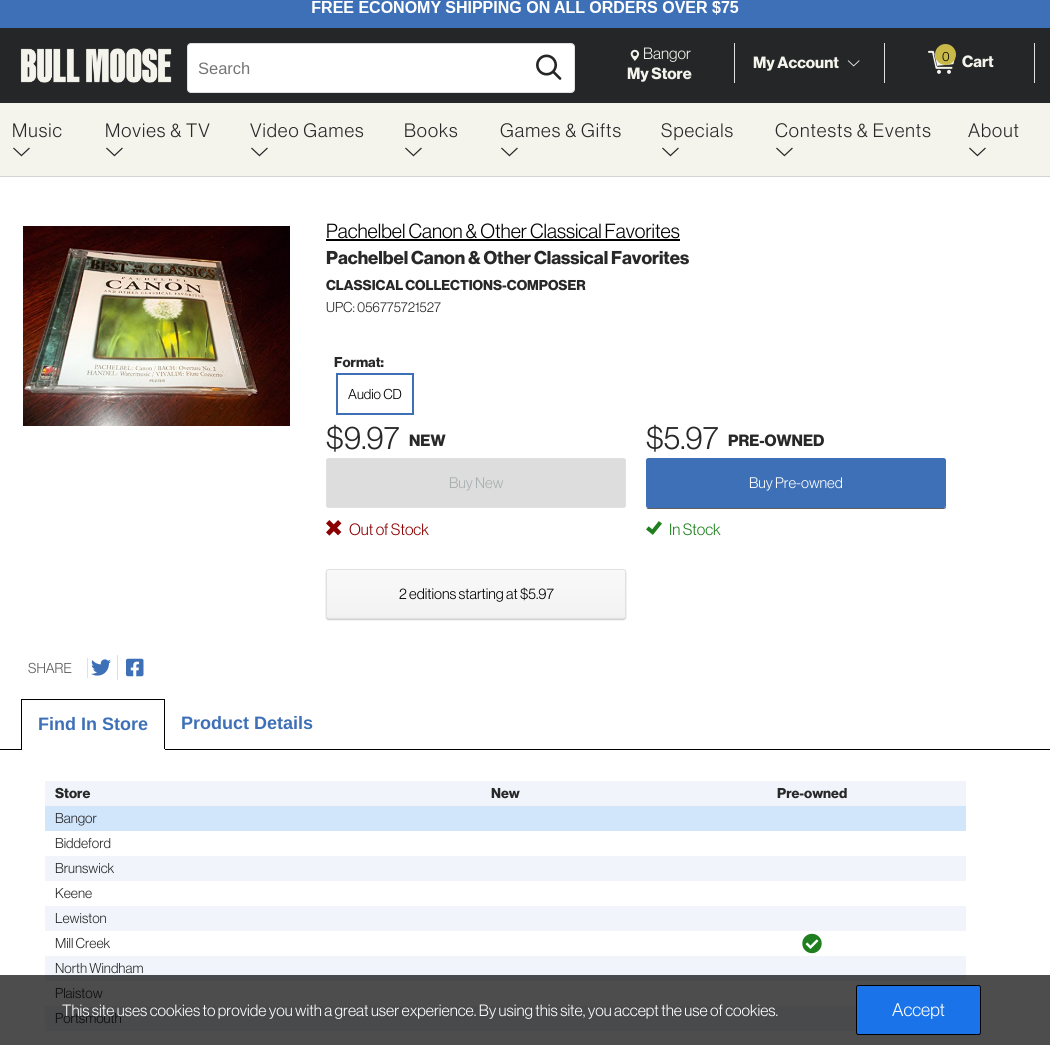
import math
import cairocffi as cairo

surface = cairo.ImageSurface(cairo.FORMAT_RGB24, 1050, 1045)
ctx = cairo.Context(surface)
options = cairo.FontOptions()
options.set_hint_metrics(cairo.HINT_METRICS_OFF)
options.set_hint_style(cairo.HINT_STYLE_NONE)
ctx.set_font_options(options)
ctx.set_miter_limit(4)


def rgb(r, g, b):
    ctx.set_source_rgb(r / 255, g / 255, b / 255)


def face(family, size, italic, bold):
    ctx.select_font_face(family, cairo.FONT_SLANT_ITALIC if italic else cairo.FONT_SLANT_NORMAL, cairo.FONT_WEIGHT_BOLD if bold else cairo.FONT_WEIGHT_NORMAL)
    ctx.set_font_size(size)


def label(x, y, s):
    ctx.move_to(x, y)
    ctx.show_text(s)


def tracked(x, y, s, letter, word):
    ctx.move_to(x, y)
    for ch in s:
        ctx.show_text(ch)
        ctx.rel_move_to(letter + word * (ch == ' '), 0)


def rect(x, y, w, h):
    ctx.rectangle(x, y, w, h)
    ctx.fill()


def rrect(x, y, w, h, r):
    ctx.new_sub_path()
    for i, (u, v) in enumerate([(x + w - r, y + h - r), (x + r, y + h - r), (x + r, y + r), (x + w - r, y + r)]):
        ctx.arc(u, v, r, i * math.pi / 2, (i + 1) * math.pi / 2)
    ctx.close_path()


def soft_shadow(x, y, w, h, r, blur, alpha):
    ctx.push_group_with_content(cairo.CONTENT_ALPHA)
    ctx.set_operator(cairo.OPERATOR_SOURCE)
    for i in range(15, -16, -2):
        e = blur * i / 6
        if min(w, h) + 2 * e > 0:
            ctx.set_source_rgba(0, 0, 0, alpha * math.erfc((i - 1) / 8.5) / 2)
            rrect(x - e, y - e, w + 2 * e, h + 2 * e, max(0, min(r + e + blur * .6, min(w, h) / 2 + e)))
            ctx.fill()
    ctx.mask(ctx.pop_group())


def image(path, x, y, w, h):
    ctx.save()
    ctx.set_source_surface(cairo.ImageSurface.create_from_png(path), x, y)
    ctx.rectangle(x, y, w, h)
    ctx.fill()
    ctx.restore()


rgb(255, 255, 255)
ctx.paint()
rgb(77, 77, 77)
rect(0, 975, 1050, 70)
rgb(62, 112, 183)
rect(0, 0, 1050, 28)
image('image0.png', 312, 1, 427, 14)
rgb(37, 38, 39)
rect(0, 28, 1050, 75)
image('image1.png', 20, 48, 152, 35)
rgb(255, 255, 255)
rrect(187.5, 43.5, 387, 49, 3.5)
ctx.fill_preserve()
rgb(224, 224, 224)
ctx.set_line_width(1)
ctx.stroke()
face('Liberation Sans', 16.5, 0, 0)
rgb(117, 117, 117)
label(198, 74, 'Search')
image('image2.png', 536, 54, 26, 26)
rgb(224, 224, 224)
rect(734, 43, 1, 40)
image('image3.png', 630, 49, 10, 12)
face('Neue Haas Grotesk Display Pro', 16, 0, 0)
rgb(244, 244, 237)
label(643, 59, 'Bangor')
face('Neue Haas Grotesk Display Pro', 16, 0, 1)
label(627, 79, 'My Store')
rgb(224, 224, 224)
rect(884, 43, 1, 40)
rgb(244, 244, 237)
label(753, 68, 'My Account')
image('image4.png', 847, 60, 13, 7)
rgb(224, 224, 224)
rect(1034, 43, 1, 40)
image('image5.png', 928, 50, 28, 24)
rgb(200, 185, 72)
ctx.arc(945.5, 54.5, 10.5, 0, 2 * math.pi)
ctx.fill()
face('Neue Haas Grotesk Display Pro', 13, 0, 0)
rgb(0, 0, 0)
label(942, 61, '0')
face('Neue Haas Grotesk Display Pro', 16, 0, 1)
rgb(244, 244, 237)
label(962, 67, 'Cart')
rect(0, 103, 1050, 73)
face('Neue Haas Grotesk Display Pro', 19, 0, 0)
rgb(40, 40, 40)
tracked(12, 137, 'Music', 1, 0)
image('image6.png', 13, 147, 17, 10)
tracked(105, 137, 'Movies & TV', 1, 0)
image('image6.png', 106, 147, 17, 10)
tracked(250, 137, 'Video Games', 1, 0)
image('image6.png', 251, 147, 17, 10)
tracked(404, 137, 'Books', 1, 0)
image('image6.png', 405, 147, 17, 10)
tracked(500, 137, 'Games & Gifts', 1, 0)
image('image6.png', 501, 147, 17, 10)
tracked(661, 137, 'Specials', 1, 0)
image('image6.png', 662, 147, 17, 10)
tracked(775, 137, 'Contests & Events', 1, 0)
image('image6.png', 776, 147, 17, 10)
tracked(968, 137, 'About', 1, 0)
image('image6.png', 969, 147, 17, 10)
rgb(211, 211, 211)
rect(0, 176, 1050, 1)
image('image7.png', 23, 226, 267, 200)
face('Neue Haas Grotesk Display Pro', 20, 0, 0)
rgb(0, 0, 0)
label(326, 238, 'Pachelbel Canon & Other Classical Favorites')
rect(326, 239, 354, 2)
face('Neue Haas Grotesk Display Pro', 18.25, 0, 1)
rgb(40, 40, 40)
label(326, 264, 'Pachelbel Canon & Other Classical Favorites')
face('Neue Haas Grotesk Display Pro', 14, 0, 1)
label(326, 290, 'CLASSICAL COLLECTIONS-COMPOSER')
face('Neue Haas Grotesk Display Pro', 14, 0, 0)
label(326, 312, 'UPC: 056775721527')
face('Neue Haas Grotesk Display Pro', 14, 0, 1)
label(334, 367, 'Format:')
ctx.rectangle(337, 374, 76, 40)
rgb(62, 112, 183)
ctx.set_line_width(2)
ctx.stroke()
face('Neue Haas Grotesk Display Pro', 14, 0, 0)
rgb(0, 0, 0)
label(348, 399, 'Audio CD')
face('Neue Haas Grotesk Display Pro', 32, 0, 0)
rgb(40, 40, 40)
label(326, 449, '$9.97')
face('Neue Haas Grotesk Display Pro', 16, 0, 1)
label(409, 446, 'NEW')
face('Neue Haas Grotesk Display Pro', 32, 0, 0)
label(646, 449, '$5.97')
face('Neue Haas Grotesk Display Pro', 16, 0, 1)
label(728, 446, 'PRE-OWNED')
rgb(221, 221, 221)
rrect(326.5, 458.5, 299, 49, 2)
ctx.fill_preserve()
rgb(224, 224, 224)
ctx.set_line_width(1)
ctx.stroke()
face('Neue Haas Grotesk Display Pro', 15, 0, 0)
rgb(168, 173, 174)
label(449, 488, 'Buy New')
rgb(96, 96, 96)
ctx.new_path()
ctx.move_to(646, 506)
ctx.curve_to(646, 507, 647, 509, 648, 509)
ctx.line_to(944, 509)
ctx.line_to(946, 508)
ctx.line_to(946, 506)
ctx.curve_to(946, 507, 945, 508, 944, 508)
ctx.line_to(648, 508)
ctx.curve_to(647, 508, 646, 507, 646, 506)
ctx.close_path()
ctx.fill()
rgb(62, 112, 183)
rrect(646.5, 458.5, 299, 49, 2)
ctx.fill_preserve()
ctx.stroke()
rgb(255, 255, 255)
label(749, 488, 'Buy Pre-owned')
image('image8.png', 326, 520, 16, 16)
face('Neue Haas Grotesk Display Pro', 16, 0, 0)
rgb(139, 0, 0)
label(349, 535, 'Out of Stock')
image('image9.png', 646, 521, 16, 14)
rgb(31, 127, 31)
label(669, 535, 'In Stock')
rgb(205, 205, 205)
soft_shadow(326, 570, 300, 50, 2.5, 0.5, 1)
ctx.save()
rrect(326, 569, 300, 50, 2.5)
ctx.clip()
gradient = cairo.LinearGradient(476, 570, 476, 618)
gradient.add_color_stop_rgba(0, 0.976, 0.976, 0.976, 1)
gradient.add_color_stop_rgba(0.94, 0.957, 0.953, 0.953, 1)
gradient.add_color_stop_rgba(1, 0.933, 0.933, 0.933, 1)
ctx.set_source(gradient)
rect(326, 570, 300, 48)
ctx.restore()
rrect(326.5, 569.5, 299, 49, 2)
rgb(224, 224, 224)
ctx.stroke()
face('Neue Haas Grotesk Display Pro', 15, 0, 0)
rgb(0, 0, 0)
label(399, 599, '2 editions starting at $5.97')
face('Neue Haas Grotesk Display Pro', 14, 0, 0)
rgb(89, 89, 89)
label(28, 673, 'SHARE')
rgb(224, 224, 224)
rect(87, 658, 1, 20)
image('image10.png', 91, 659, 20, 17)
rect(117, 655, 1, 25)
image('image11.png', 126, 658, 18, 19)
rgb(0, 0, 0)
rect(21, 699, 144, 1)
rect(0, 749, 1050, 1)
rect(164, 699, 1, 51)
rgb(255, 255, 255)
rect(21, 749, 144, 1)
rgb(0, 0, 0)
rect(21, 699, 1, 51)
face('Liberation Sans', 18, 0, 1)
rgb(62, 112, 183)
label(38, 730, 'Find In Store')
label(181, 729, 'Product Details')
rgb(241, 245, 251)
rect(45, 781, 921, 25)
face('Neue Haas Grotesk Display Pro', 14, 0, 1)
rgb(40, 40, 40)
label(55, 798, 'Store')
label(491, 798, 'New')
label(777, 798, 'Pre-owned')
rgb(209, 229, 251)
rect(45, 806, 921, 25)
face('Neue Haas Grotesk Display Pro', 14, 0, 0)
rgb(40, 40, 40)
label(55, 823, 'Bangor')
label(55, 848, 'Biddeford')
rgb(241, 245, 251)
rect(45, 856, 921, 25)
rgb(40, 40, 40)
label(55, 873, 'Brunswick')
label(55, 898, 'Keene')
rgb(241, 245, 251)
rect(45, 906, 921, 25)
rgb(40, 40, 40)
label(55, 923, 'Lewiston')
label(55, 948, 'Mill Creek')
image('image12.png', 802, 933, 20, 21)
rgb(241, 245, 251)
rect(45, 956, 921, 19)
rgb(72, 74, 75)
rect(45, 975, 921, 6)
rgb(40, 40, 40)
label(55, 973, 'North Windham')
rgb(12, 12, 12)
label(55, 998, 'Plaistow')
rgb(72, 74, 75)
rect(45, 1006, 811, 25)
rgb(12, 12, 12)
label(55, 1023, 'Portsmouth')
face('Neue Haas Grotesk Display Pro', 16, 0, 0)
rgb(255, 255, 255)
label(62, 1016, 'This site uses cookies to provide you with a great user experience. By using this site, you accept the use of cookies.')
rgb(26, 115, 232)
rrect(856.5, 985.5, 124, 49, 2)
ctx.fill_preserve()
rgb(0, 0, 0)
ctx.stroke()
face('Neue Haas Grotesk Display Pro', 18, 0, 0)
rgb(255, 255, 255)
label(892, 1016, 'Accept')
surface.write_to_png('render.png')
